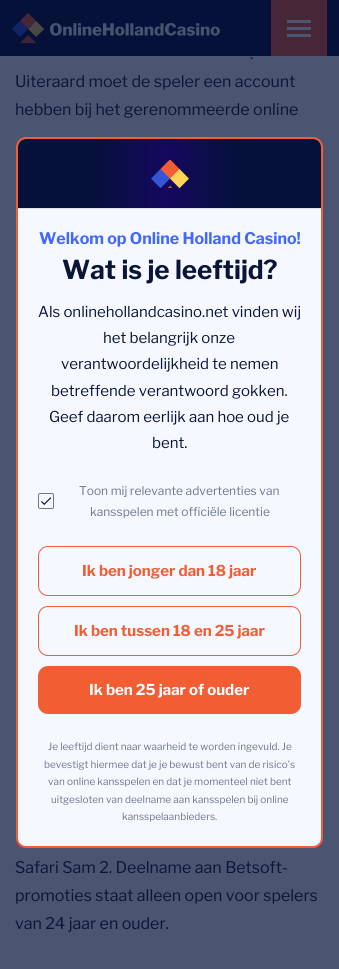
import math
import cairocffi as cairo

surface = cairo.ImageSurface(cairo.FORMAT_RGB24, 339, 969)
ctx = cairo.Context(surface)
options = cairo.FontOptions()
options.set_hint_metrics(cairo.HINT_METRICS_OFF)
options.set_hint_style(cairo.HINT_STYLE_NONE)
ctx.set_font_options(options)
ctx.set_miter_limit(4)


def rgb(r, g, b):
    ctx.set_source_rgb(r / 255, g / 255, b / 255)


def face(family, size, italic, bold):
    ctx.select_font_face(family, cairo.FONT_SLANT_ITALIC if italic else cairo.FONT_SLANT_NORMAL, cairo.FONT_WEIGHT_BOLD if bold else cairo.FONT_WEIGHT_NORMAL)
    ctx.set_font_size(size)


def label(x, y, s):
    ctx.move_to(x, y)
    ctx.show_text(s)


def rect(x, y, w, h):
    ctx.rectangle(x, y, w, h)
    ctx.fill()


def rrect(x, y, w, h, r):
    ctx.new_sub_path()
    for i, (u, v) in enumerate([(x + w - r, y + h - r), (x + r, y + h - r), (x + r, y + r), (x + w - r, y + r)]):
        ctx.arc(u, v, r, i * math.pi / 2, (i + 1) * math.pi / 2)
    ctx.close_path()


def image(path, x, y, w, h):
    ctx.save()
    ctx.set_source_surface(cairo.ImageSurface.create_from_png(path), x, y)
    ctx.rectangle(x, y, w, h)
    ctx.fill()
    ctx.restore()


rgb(75, 84, 112)
ctx.paint()
rgb(5, 17, 57)
rect(0, 0, 339, 56)
image('image0.png', 12, 13, 208, 30)
rgb(71, 38, 56)
rect(271, 0, 56, 56)
rgb(75, 84, 112)
rect(287, 20, 24, 3)
rect(287, 27, 24, 3)
rect(287, 34, 24, 3)
face('Libre Franklin', 16, 0, 0)
rgb(10, 21, 56)
label(250, 59, '.')
label(15, 87, 'Uiteraard moet de speler een account')
label(15, 115, 'hebben bij het gerenommeerde online')
label(15, 873, 'Safari Sam 2. Deelname aan Betsoft-')
label(15, 901, 'promoties staat alleen open voor spelers')
label(15, 929, 'van 24 jaar en ouder.')
rgb(245, 248, 255)
rrect(17, 138, 305, 709, 9)
ctx.fill_preserve()
rgb(242, 93, 52)
ctx.stroke()
gradient = cairo.LinearGradient(18, 174, 321, 174)
gradient.add_color_stop_rgba(0.09, 0.02, 0.067, 0.224, 1)
gradient.add_color_stop_rgba(0.23, 0.02, 0.067, 0.224, 1)
gradient.add_color_stop_rgba(0.49, 0.078, 0.031, 0.373, 1)
gradient.add_color_stop_rgba(0.74, 0.02, 0.067, 0.224, 1)
gradient.add_color_stop_rgba(0.9, 0.02, 0.067, 0.224, 1)
ctx.set_source(gradient)
ctx.new_path()
ctx.move_to(26, 139)
ctx.line_to(313, 139)
ctx.curve_to(317.5, 139, 321, 142.5, 321, 147)
ctx.line_to(321, 209)
ctx.line_to(18, 209)
ctx.line_to(18, 147)
ctx.curve_to(18, 142.5, 21.5, 139, 26, 139)
ctx.close_path()
ctx.fill()
rgb(222, 226, 230)
rect(18, 208, 303, 1)
image('image1.png', 151, 160, 38, 28)
face('Libre Franklin', 16, 0, 1)
rgb(66, 104, 251)
label(39, 244, 'Welkom op Online Holland Casino!')
face('Libre Franklin', 26, 0, 1)
rgb(10, 21, 56)
label(62, 279, 'Wat is je leeftijd?')
face('Libre Franklin', 15, 0, 0)
label(38, 317, 'Als onlinehollandcasino.net vinden wij')
label(103, 343, 'het belangrijk onze')
label(61, 369, 'verantwoordelijkheid te nemen')
label(51, 396, 'betreffende verantwoord gokken.')
label(49, 422, 'Geef daarom eerlijk aan hoe oud je')
label(152, 448, 'bent.')
rrect(38.5, 493.5, 15, 15, 1.5)
rgb(110, 119, 143)
ctx.set_line_width(1)
ctx.stroke()
image('image2.png', 41, 497, 11, 8)
face('Libre Franklin', 12, 0, 0)
label(79, 495, 'Toon mij relevante advertenties van')
label(90, 516, 'kansspelen met officiële licentie')
rrect(38.5, 546.5, 262, 49, 9.5)
rgb(242, 93, 52)
ctx.stroke()
face('Libre Franklin', 15, 0, 1)
label(82, 576, 'Ik ben jonger dan 18 jaar')
rrect(38.5, 606.5, 262, 49, 9.5)
ctx.stroke()
label(74, 636, 'Ik ben tussen 18 en 25 jaar')
rrect(38, 666, 263, 48, 10)
ctx.fill()
rgb(255, 255, 255)
label(89, 695, 'Ik ben 25 jaar of ouder')
face('Libre Franklin', 10, 0, 0)
rgb(110, 119, 143)
label(48, 750, 'Je leeftijd dient naar waarheid te worden ingevuld. Je')
label(44, 768, 'bevestigt hiermee dat je je bewust bent van de risico’s')
label(48, 785, 'van online kansspelen en dat je momenteel niet bent')
label(51, 803, 'uitgesloten van deelname aan kansspelen bij online')
label(122, 820, 'kansspelaanbieders.')
surface.write_to_png('render.png')
